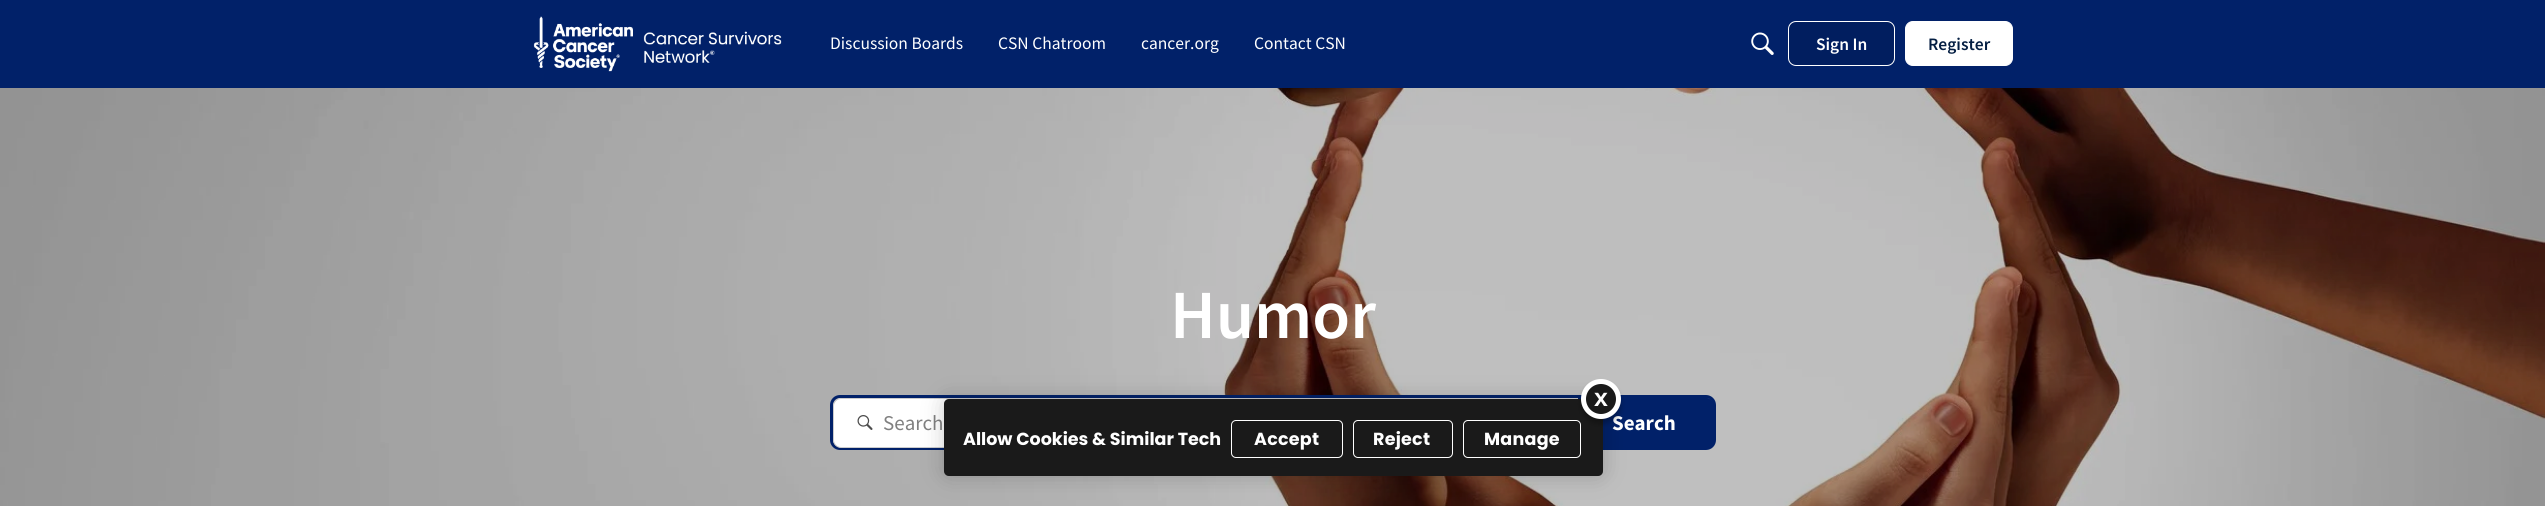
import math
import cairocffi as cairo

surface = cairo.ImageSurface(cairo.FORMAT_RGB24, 2545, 506)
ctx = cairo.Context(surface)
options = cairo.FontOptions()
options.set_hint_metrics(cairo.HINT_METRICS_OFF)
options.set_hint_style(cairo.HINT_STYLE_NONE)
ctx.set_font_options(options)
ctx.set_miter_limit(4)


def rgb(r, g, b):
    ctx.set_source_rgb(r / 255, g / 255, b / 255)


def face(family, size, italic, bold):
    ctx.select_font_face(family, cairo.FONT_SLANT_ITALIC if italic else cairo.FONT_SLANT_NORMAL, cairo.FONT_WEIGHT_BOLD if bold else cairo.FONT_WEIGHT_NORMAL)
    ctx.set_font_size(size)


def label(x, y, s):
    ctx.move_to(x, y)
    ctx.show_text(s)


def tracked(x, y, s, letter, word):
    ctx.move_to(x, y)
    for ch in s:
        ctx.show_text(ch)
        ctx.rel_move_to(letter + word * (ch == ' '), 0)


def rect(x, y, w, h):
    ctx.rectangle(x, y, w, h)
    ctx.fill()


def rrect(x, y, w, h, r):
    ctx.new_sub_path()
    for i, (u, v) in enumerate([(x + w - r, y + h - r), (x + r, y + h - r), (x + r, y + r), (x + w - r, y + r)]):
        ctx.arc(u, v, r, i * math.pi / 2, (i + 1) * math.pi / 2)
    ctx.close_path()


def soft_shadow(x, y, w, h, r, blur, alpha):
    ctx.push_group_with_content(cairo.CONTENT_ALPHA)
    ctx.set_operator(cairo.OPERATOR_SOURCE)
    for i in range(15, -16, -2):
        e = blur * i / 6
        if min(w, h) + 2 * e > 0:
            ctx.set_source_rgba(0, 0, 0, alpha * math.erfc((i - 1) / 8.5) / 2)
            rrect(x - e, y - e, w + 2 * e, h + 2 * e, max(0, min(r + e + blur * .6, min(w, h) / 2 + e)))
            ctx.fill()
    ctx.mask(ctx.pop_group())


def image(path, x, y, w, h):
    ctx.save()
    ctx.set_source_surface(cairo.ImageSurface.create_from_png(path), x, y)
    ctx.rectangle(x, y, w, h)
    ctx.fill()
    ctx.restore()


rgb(255, 255, 255)
ctx.paint()
rgb(1, 33, 105)
rect(0, 0, 2545, 88)
image('image0.png', 533, 16, 249, 56)
face('Source Sans Pro', 17.5, 0, 0)
rgb(255, 255, 255)
label(830, 49, 'Discussion Boards')
label(998, 49, 'CSN Chatroom')
label(1141, 49, 'cancer.org')
label(1254, 49, 'Contact CSN')
image('image1.png', 1751, 32, 23, 23)
rgb(1, 30, 95)
rrect(1788.5, 21.5, 106, 44, 7.5)
ctx.fill_preserve()
rgb(255, 255, 255)
ctx.set_line_width(1)
ctx.stroke()
face('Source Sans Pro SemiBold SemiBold', 17.5, 0, 0)
label(1816, 50, 'Sign In')
rrect(1905.5, 21.5, 107, 44, 7.5)
ctx.fill_preserve()
ctx.stroke()
rgb(4, 30, 66)
label(1928, 50, 'Register')
image('image2.png', 0, 88, 2545, 418)
face('Source Sans Pro SemiBold SemiBold', 69, 0, 0)
rgb(255, 255, 255)
label(1170, 338, 'Humor')
rrect(831.5, 396.5, 883, 52, 8.5)
rgb(1, 33, 105)
ctx.set_line_width(3)
ctx.stroke()
ctx.new_path()
ctx.move_to(1576.5, 398.5)
ctx.line_to(1707, 398.5)
ctx.curve_to(1711, 398.5, 1714.5, 402, 1714.5, 406)
ctx.line_to(1714.5, 440)
ctx.curve_to(1714.5, 444, 1711, 447.5, 1707, 447.5)
ctx.line_to(1576.5, 447.5)
ctx.close_path()
ctx.fill_preserve()
ctx.set_line_width(1)
ctx.stroke()
rgb(255, 255, 255)
ctx.new_path()
ctx.move_to(841, 398.5)
ctx.line_to(1577.5, 398.5)
ctx.line_to(1577.5, 447.5)
ctx.line_to(841, 447.5)
ctx.curve_to(837, 447.5, 833.5, 444, 833.5, 440)
ctx.line_to(833.5, 406)
ctx.curve_to(833.5, 402, 837, 398.5, 841, 398.5)
ctx.close_path()
ctx.fill_preserve()
rgb(204, 204, 204)
ctx.stroke()
image('image3.png', 857, 415, 16, 15)
face('Source Sans Pro', 21, 0, 0)
rgb(128, 128, 128)
label(883, 430, 'Search')
face('Source Sans Pro', 21, 0, 1)
rgb(255, 255, 255)
label(1612, 430, 'Search')
rgb(0, 0, 0)
soft_shadow(944, 399, 659, 77, 5, 11, 0.2)
rgb(26, 26, 26)
rrect(944, 399, 659, 77, 5)
ctx.fill()
rrect(944.5, 399.5, 658, 76, 4.5)
ctx.set_source_rgba(0.102, 0.102, 0.102, 0.2)
ctx.stroke()
rrect(1463.5, 420.5, 117, 37, 4.5)
rgb(255, 255, 255)
ctx.stroke()
rgb(0, 0, 0)
soft_shadow(1581, 384, 40, 40, 20, 2.5, 0.25)
rgb(26, 26, 26)
ctx.arc(1601, 399, 17.5, 0, 2 * math.pi)
ctx.fill_preserve()
rgb(255, 255, 255)
ctx.set_line_width(5)
ctx.stroke()
face('Liberation Sans', 25, 0, 1)
tracked(1594, 406, 'x', 0.25, 0)
face('Poppins', 17.5, 0, 1)
label(963, 445, 'Allow Cookies & Similar Tech')
rrect(1231.5, 420.5, 111, 37, 4.5)
ctx.set_line_width(1)
ctx.stroke()
tracked(1254, 445, 'Accept', 0.25, 0)
rrect(1353.5, 420.5, 99, 37, 4.5)
ctx.stroke()
tracked(1373, 445, 'Reject', 0.25, 0)
tracked(1484, 445, 'Manage', 0.25, 0)
surface.write_to_png('render.png')
